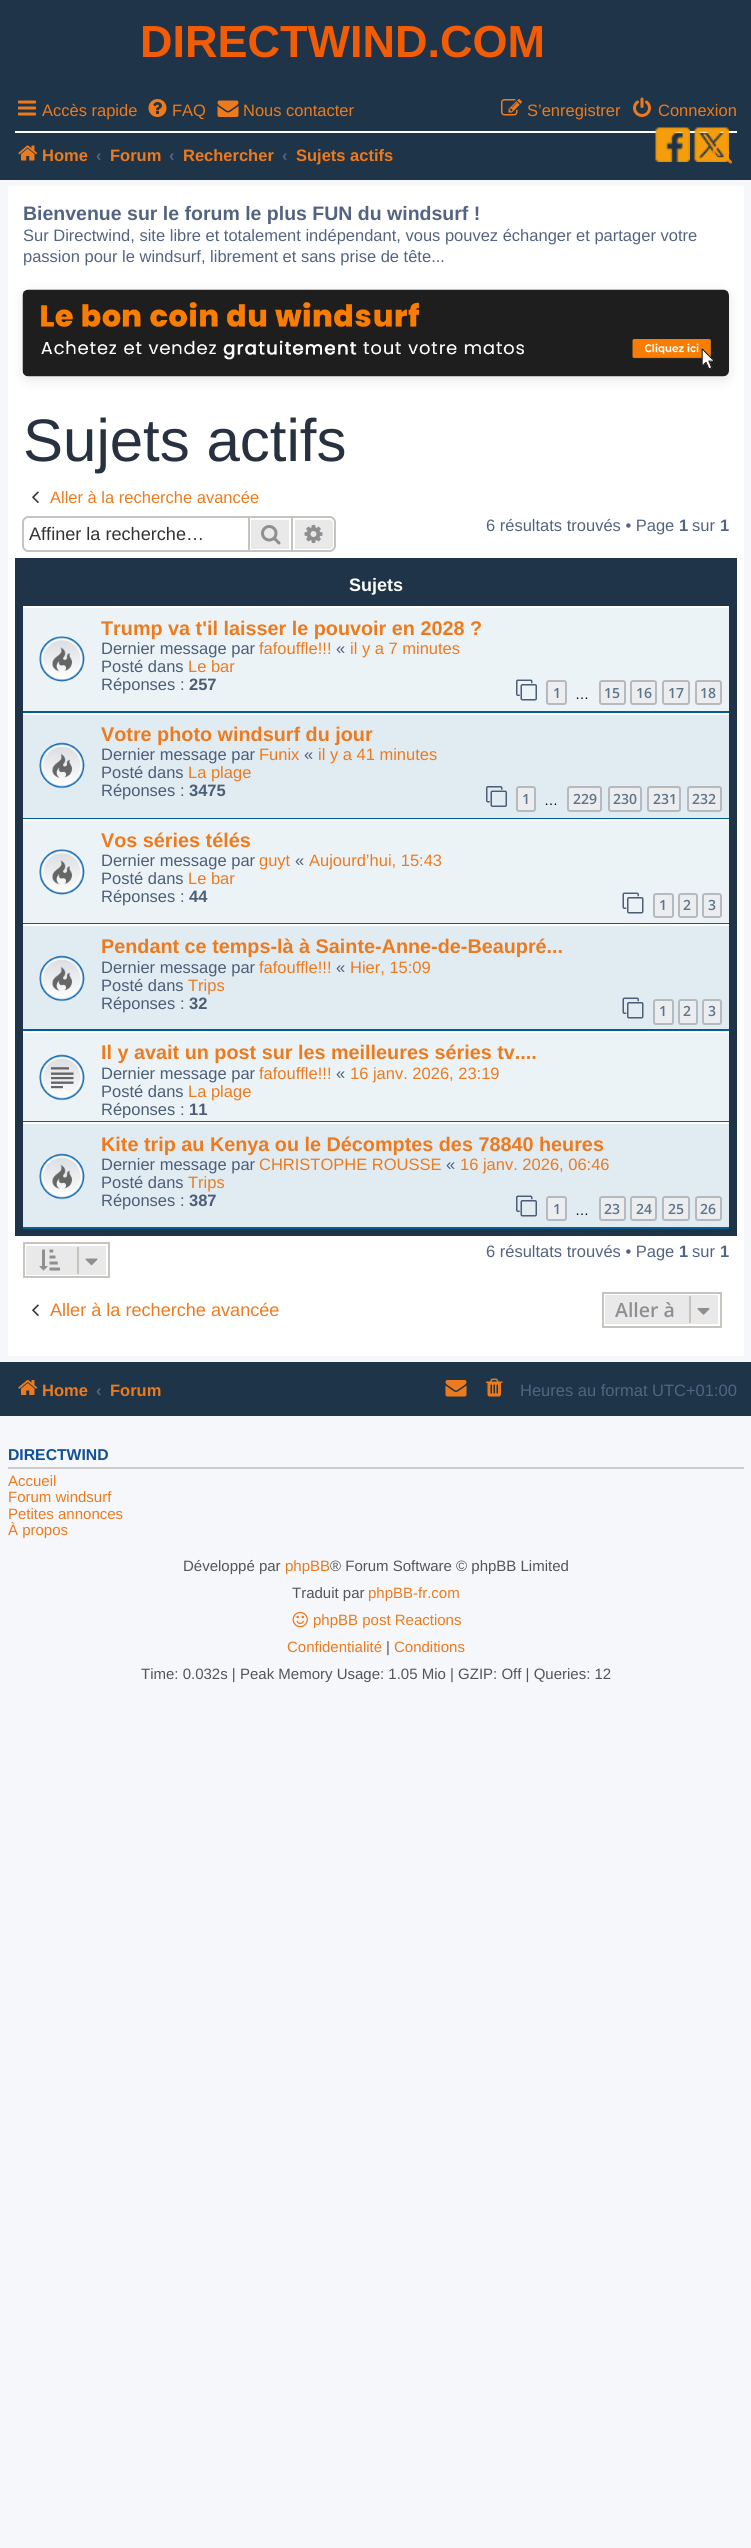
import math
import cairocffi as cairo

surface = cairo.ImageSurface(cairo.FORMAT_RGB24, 751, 2548)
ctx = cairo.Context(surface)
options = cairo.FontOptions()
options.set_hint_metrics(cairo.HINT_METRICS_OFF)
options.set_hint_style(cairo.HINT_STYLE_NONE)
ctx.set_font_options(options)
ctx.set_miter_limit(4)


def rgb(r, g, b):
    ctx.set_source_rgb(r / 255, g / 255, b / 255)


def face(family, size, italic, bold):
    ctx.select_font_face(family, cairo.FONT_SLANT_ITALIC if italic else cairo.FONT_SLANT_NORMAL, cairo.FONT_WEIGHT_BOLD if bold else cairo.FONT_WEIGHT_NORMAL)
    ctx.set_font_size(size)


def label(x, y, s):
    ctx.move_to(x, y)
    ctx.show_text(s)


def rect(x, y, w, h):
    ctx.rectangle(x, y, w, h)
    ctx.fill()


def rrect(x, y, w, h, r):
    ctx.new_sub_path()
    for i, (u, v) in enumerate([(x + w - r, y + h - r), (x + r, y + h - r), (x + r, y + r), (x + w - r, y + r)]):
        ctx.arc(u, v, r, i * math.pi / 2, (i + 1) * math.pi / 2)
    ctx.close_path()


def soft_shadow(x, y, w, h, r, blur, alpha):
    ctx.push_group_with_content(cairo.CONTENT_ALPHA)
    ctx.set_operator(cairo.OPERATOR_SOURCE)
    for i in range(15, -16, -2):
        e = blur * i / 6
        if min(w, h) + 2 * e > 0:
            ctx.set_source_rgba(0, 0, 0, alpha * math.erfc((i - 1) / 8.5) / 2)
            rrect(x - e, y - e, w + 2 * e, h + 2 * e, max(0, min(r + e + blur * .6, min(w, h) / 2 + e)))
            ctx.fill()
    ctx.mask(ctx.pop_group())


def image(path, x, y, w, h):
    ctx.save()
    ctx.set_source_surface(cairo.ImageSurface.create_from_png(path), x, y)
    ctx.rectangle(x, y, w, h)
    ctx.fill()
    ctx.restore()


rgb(245, 247, 250)
ctx.paint()
rgb(31, 52, 73)
rect(0, 0, 751, 83)
face('Liberation Sans', 45, 0, 1)
rgb(242, 92, 5)
label(140, 57, 'DIRECTWIND.COM')
rgb(30, 52, 72)
rect(0, 83, 751, 97)
rgb(255, 255, 255)
rect(15, 131, 722, 2)
image('image0.png', 655, 127, 35, 35)
image('image8.png', 712, 144, 20, 20)
image('image1.png', 694, 127, 35, 35)
image('image2.png', 18, 100, 18, 16)
face('Liberation Sans', 16.5, 0, 0)
rgb(237, 122, 29)
label(42, 116, 'Accès rapide')
image('image3.png', 148, 99, 19, 18)
label(172, 116, 'FAQ')
image('image4.png', 217, 100, 22, 17)
label(243, 116, 'Nous contacter')
image('image5.png', 501, 99, 21, 17)
label(527, 116, 'S’enregistrer')
image('image6.png', 633, 97, 18, 20)
label(658, 116, 'Connexion')
image('image7.png', 18, 145, 20, 16)
face('Liberation Sans', 16.5, 0, 1)
label(42, 161, 'Home')
rgb(83, 100, 130)
label(96, 161, '‹')
rgb(237, 122, 29)
label(110, 161, 'Forum')
rgb(83, 100, 130)
label(169, 161, '‹')
rgb(237, 122, 29)
label(183, 161, 'Rechercher')
rgb(83, 100, 130)
label(282, 161, '‹')
rgb(237, 122, 29)
label(296, 161, 'Sujets actifs')
rgb(255, 255, 255)
rect(8, 186, 736, 1170)
face('Liberation Sans', 19.5, 0, 1)
rgb(83, 100, 130)
label(23, 220, 'Bienvenue sur le forum le plus FUN du windsurf !')
face('Liberation Sans', 16.5, 0, 0)
label(23, 241, 'Sur Directwind, site libre et totalement indépendant, vous pouvez échanger et partager votre')
label(23, 262, 'passion pour le windsurf, librement et sans prise de tête...')
rgb(0, 0, 0)
soft_shadow(23, 293, 706, 87, 6, 6, 0.1)
rgb(245, 245, 245)
rrect(23, 290, 706, 87, 6)
ctx.fill()
image('image9.png', 22, 289, 707, 88)
face('Liberation Sans', 60, 0, 0)
rgb(40, 49, 63)
label(23, 461, 'Sujets actifs')
image('image10.png', 32, 491, 7, 12)
face('Liberation Sans', 16.5, 0, 0)
rgb(237, 122, 29)
label(50, 503, 'Aller à la recherche avancée')
rgb(199, 195, 191)
ctx.set_fill_rule(cairo.FILL_RULE_EVEN_ODD)
ctx.new_path()
ctx.move_to(28, 516)
ctx.line_to(248, 516)
ctx.line_to(248, 552)
ctx.line_to(28, 552)
ctx.curve_to(25, 552, 22, 549, 22, 546)
ctx.line_to(22, 522)
ctx.curve_to(22, 519, 25, 516, 28, 516)
ctx.close_path()
ctx.move_to(28, 518)
ctx.line_to(248, 518)
ctx.line_to(248, 550)
ctx.line_to(28, 550)
ctx.curve_to(26, 550, 24, 548, 24, 546)
ctx.line_to(24, 522)
ctx.curve_to(24, 520, 26, 518, 28, 518)
ctx.close_path()
ctx.fill()
face('Liberation Sans', 18.1, 0, 0)
rgb(51, 51, 51)
label(29, 540, 'Affiner la recherche…')
rgb(233, 233, 233)
rect(251, 520, 38, 29)
ctx.rectangle(249, 517, 43, 34)
rgb(199, 195, 191)
ctx.stroke()
image('image11.png', 261, 525, 20, 20)
rgb(233, 233, 233)
ctx.new_path()
ctx.move_to(294, 519)
ctx.line_to(330, 519)
ctx.curve_to(332, 519, 334, 521, 334, 523)
ctx.line_to(334, 546)
ctx.curve_to(334, 548, 332, 550, 330, 550)
ctx.line_to(294, 550)
ctx.close_path()
ctx.fill_preserve()
rgb(255, 255, 255)
ctx.stroke()
rgb(199, 195, 191)
ctx.new_path()
ctx.move_to(292, 516)
ctx.line_to(330, 516)
ctx.curve_to(333, 516, 336, 519, 336, 522)
ctx.line_to(336, 546)
ctx.curve_to(336, 549, 333, 552, 330, 552)
ctx.line_to(292, 552)
ctx.close_path()
ctx.move_to(292, 518)
ctx.line_to(330, 518)
ctx.curve_to(332, 518, 334, 520, 334, 522)
ctx.line_to(334, 546)
ctx.curve_to(334, 548, 332, 550, 330, 550)
ctx.line_to(292, 550)
ctx.close_path()
ctx.fill()
image('image12.png', 304, 525, 19, 18)
face('Liberation Sans', 16.5, 0, 0)
rgb(83, 100, 130)
label(486, 531, '6 résultats trouvés • Page')
face('Liberation Sans', 16.5, 0, 1)
label(679, 531, '1')
face('Liberation Sans', 16.5, 0, 0)
label(692, 531, 'sur')
face('Liberation Sans', 16.5, 0, 1)
label(720, 531, '1')
rgb(31, 52, 73)
rect(15, 558, 722, 678)
face('Liberation Sans', 18, 0, 1)
rgb(255, 255, 255)
label(349, 591, 'Sujets')
rgb(236, 243, 247)
rect(23, 608, 706, 103)
rgb(255, 255, 255)
rect(23, 606, 706, 2)
rgb(0, 96, 143)
rect(23, 711, 706, 2)
image('image13.png', 39, 636, 46, 46)
face('Liberation Sans', 19.8, 0, 1)
rgb(237, 122, 29)
label(101, 635, 'Trump va t\'il laisser le pouvoir en 2028 ?')
face('Liberation Sans', 16.5, 0, 0)
rgb(76, 93, 119)
label(101, 654, 'Dernier message par')
rgb(237, 122, 29)
label(259, 654, 'fafouffle!!!')
rgb(76, 93, 119)
label(336, 654, '«')
rgb(237, 122, 29)
label(350, 654, 'il y a 7 minutes')
rgb(76, 93, 119)
label(101, 672, 'Posté dans')
rgb(237, 122, 29)
label(188, 672, 'Le bar')
rgb(76, 93, 119)
label(101, 690, 'Réponses :')
face('Liberation Sans', 16.5, 0, 1)
label(189, 690, '257')
image('image14.png', 516, 679, 21, 22)
rgb(236, 237, 238)
rrect(547, 681, 19, 23, 2)
ctx.fill_preserve()
rgb(180, 186, 192)
ctx.stroke()
face('Open Sans SemiBold', 14, 0, 0)
rgb(92, 117, 140)
label(553, 698, '1')
face('Liberation Sans', 14, 0, 0)
rgb(0, 0, 0)
label(575, 699, '…')
rgb(236, 237, 238)
rrect(600, 681, 25, 23, 2)
ctx.fill_preserve()
rgb(180, 186, 192)
ctx.stroke()
face('Open Sans SemiBold', 14, 0, 0)
rgb(92, 117, 140)
label(604, 698, '15')
rgb(236, 237, 238)
rrect(631, 681, 25, 23, 2)
ctx.fill_preserve()
rgb(180, 186, 192)
ctx.stroke()
rgb(92, 117, 140)
label(636, 698, '16')
rgb(236, 237, 238)
rrect(663, 681, 26, 23, 2)
ctx.fill_preserve()
rgb(180, 186, 192)
ctx.stroke()
rgb(92, 117, 140)
label(668, 698, '17')
rgb(236, 237, 238)
rrect(696, 681, 25, 23, 2)
ctx.fill_preserve()
rgb(180, 186, 192)
ctx.stroke()
rgb(92, 117, 140)
label(700, 698, '18')
rgb(225, 235, 242)
rect(23, 715, 706, 103)
rgb(255, 255, 255)
rect(23, 713, 706, 2)
rgb(0, 96, 143)
rect(23, 818, 706, 1)
image('image15.png', 39, 742, 46, 47)
face('Liberation Sans', 19.8, 0, 1)
rgb(237, 122, 29)
label(101, 741, 'Votre photo windsurf du jour')
face('Liberation Sans', 16.5, 0, 0)
rgb(76, 93, 119)
label(101, 760, 'Dernier message par')
rgb(237, 122, 29)
label(259, 760, 'Funix')
rgb(76, 93, 119)
label(304, 760, '«')
rgb(237, 122, 29)
label(318, 760, 'il y a 41 minutes')
rgb(76, 93, 119)
label(101, 778, 'Posté dans')
rgb(237, 122, 29)
label(188, 778, 'La plage')
rgb(76, 93, 119)
label(101, 796, 'Réponses :')
face('Liberation Sans', 16.5, 0, 1)
label(189, 796, '3475')
image('image16.png', 486, 786, 21, 21)
rgb(236, 237, 238)
rrect(517, 787, 18, 24, 2)
ctx.fill_preserve()
rgb(180, 186, 192)
ctx.stroke()
face('Open Sans SemiBold', 14, 0, 0)
rgb(92, 117, 140)
label(522, 804, '1')
face('Liberation Sans', 14, 0, 0)
rgb(0, 0, 0)
label(544, 805, '…')
rgb(236, 237, 238)
rrect(568, 787, 33, 24, 2)
ctx.fill_preserve()
rgb(180, 186, 192)
ctx.stroke()
face('Open Sans SemiBold', 14, 0, 0)
rgb(92, 117, 140)
label(573, 804, '229')
rgb(236, 237, 238)
rrect(609, 787, 32, 24, 2)
ctx.fill_preserve()
rgb(180, 186, 192)
ctx.stroke()
rgb(92, 117, 140)
label(613, 804, '230')
rgb(236, 237, 238)
rrect(648, 787, 32, 24, 2)
ctx.fill_preserve()
rgb(180, 186, 192)
ctx.stroke()
rgb(92, 117, 140)
label(653, 804, '231')
rgb(236, 237, 238)
rrect(688, 787, 33, 24, 2)
ctx.fill_preserve()
rgb(180, 186, 192)
ctx.stroke()
rgb(92, 117, 140)
label(692, 804, '232')
rgb(236, 243, 247)
rect(23, 821, 706, 102)
rgb(255, 255, 255)
rect(23, 819, 706, 2)
rgb(0, 96, 143)
rect(23, 923, 706, 1)
image('image13.png', 39, 849, 46, 46)
face('Liberation Sans', 19.8, 0, 1)
rgb(237, 122, 29)
label(101, 847, 'Vos séries télés')
face('Liberation Sans', 16.5, 0, 0)
rgb(76, 93, 119)
label(101, 866, 'Dernier message par')
rgb(237, 122, 29)
label(259, 866, 'guyt')
rgb(76, 93, 119)
label(295, 866, '«')
rgb(237, 122, 29)
label(309, 866, 'Aujourd’hui, 15:43')
rgb(76, 93, 119)
label(101, 884, 'Posté dans')
rgb(237, 122, 29)
label(188, 884, 'Le bar')
rgb(76, 93, 119)
label(101, 902, 'Réponses :')
face('Liberation Sans', 16.5, 0, 1)
label(189, 902, '44')
image('image17.png', 622, 892, 22, 22)
rgb(236, 237, 238)
rrect(654, 894, 19, 23, 2)
ctx.fill_preserve()
rgb(180, 186, 192)
ctx.stroke()
face('Open Sans SemiBold', 14, 0, 0)
rgb(92, 117, 140)
label(659, 910, '1')
rgb(236, 237, 238)
rrect(679, 894, 18, 23, 2)
ctx.fill_preserve()
rgb(180, 186, 192)
ctx.stroke()
rgb(92, 117, 140)
label(683, 910, '2')
rgb(236, 237, 238)
rrect(703, 894, 18, 23, 2)
ctx.fill_preserve()
rgb(180, 186, 192)
ctx.stroke()
rgb(92, 117, 140)
label(708, 910, '3')
rgb(225, 235, 242)
rect(23, 926, 706, 103)
rgb(255, 255, 255)
rect(23, 924, 706, 2)
rgb(0, 96, 143)
rect(23, 1029, 706, 2)
image('image15.png', 39, 955, 46, 47)
face('Liberation Sans', 19.8, 0, 1)
rgb(237, 122, 29)
label(101, 953, 'Pendant ce temps-là à Sainte-Anne-de-Beaupré...')
face('Liberation Sans', 16.5, 0, 0)
rgb(76, 93, 119)
label(101, 973, 'Dernier message par')
rgb(237, 122, 29)
label(259, 973, 'fafouffle!!!')
rgb(76, 93, 119)
label(336, 973, '«')
rgb(237, 122, 29)
label(350, 973, 'Hier, 15:09')
rgb(76, 93, 119)
label(101, 991, 'Posté dans')
rgb(237, 122, 29)
label(188, 991, 'Trips')
rgb(76, 93, 119)
label(101, 1009, 'Réponses :')
face('Liberation Sans', 16.5, 0, 1)
label(189, 1009, '32')
image('image18.png', 622, 997, 22, 22)
rgb(236, 237, 238)
rrect(654, 1000, 19, 24, 2)
ctx.fill_preserve()
rgb(180, 186, 192)
ctx.stroke()
face('Open Sans SemiBold', 14, 0, 0)
rgb(92, 117, 140)
label(659, 1016, '1')
rgb(236, 237, 238)
rrect(679, 1000, 18, 24, 2)
ctx.fill_preserve()
rgb(180, 186, 192)
ctx.stroke()
rgb(92, 117, 140)
label(683, 1016, '2')
rgb(236, 237, 238)
rrect(703, 1000, 18, 24, 2)
ctx.fill_preserve()
rgb(180, 186, 192)
ctx.stroke()
rgb(92, 117, 140)
label(708, 1016, '3')
rgb(236, 243, 247)
rect(23, 1033, 706, 88)
rgb(255, 255, 255)
rect(23, 1031, 706, 2)
rgb(0, 96, 143)
rect(23, 1121, 706, 1)
image('image19.png', 39, 1054, 46, 47)
face('Liberation Sans', 19.8, 0, 1)
rgb(237, 122, 29)
label(101, 1059, 'Il y avait un post sur les meilleures séries tv....')
face('Liberation Sans', 16.5, 0, 0)
rgb(76, 93, 119)
label(101, 1079, 'Dernier message par')
rgb(237, 122, 29)
label(259, 1079, 'fafouffle!!!')
rgb(76, 93, 119)
label(336, 1079, '«')
rgb(237, 122, 29)
label(350, 1079, '16 janv. 2026, 23:19')
rgb(76, 93, 119)
label(101, 1097, 'Posté dans')
rgb(237, 122, 29)
label(188, 1097, 'La plage')
ctx.save()
ctx.set_fill_rule(cairo.FILL_RULE_WINDING)
ctx.rectangle(23, 1035, 706, 83)
ctx.clip()
rgb(76, 93, 119)
label(101, 1115, 'Réponses :')
ctx.restore()
face('Liberation Sans', 16.5, 0, 1)
rgb(76, 93, 119)
label(189, 1115, '11')
rgb(225, 235, 242)
rect(23, 1124, 706, 103)
rgb(255, 255, 255)
rect(23, 1122, 706, 2)
rgb(0, 96, 143)
rect(23, 1227, 706, 2)
image('image15.png', 39, 1153, 46, 47)
face('Liberation Sans', 19.8, 0, 1)
rgb(237, 122, 29)
label(101, 1151, 'Kite trip au Kenya ou le Décomptes des 78840 heures')
face('Liberation Sans', 16.5, 0, 0)
rgb(76, 93, 119)
label(101, 1170, 'Dernier message par')
rgb(237, 122, 29)
label(259, 1170, 'CHRISTOPHE ROUSSE')
rgb(76, 93, 119)
label(446, 1170, '«')
rgb(237, 122, 29)
label(460, 1170, '16 janv. 2026, 06:46')
rgb(76, 93, 119)
label(101, 1188, 'Posté dans')
rgb(237, 122, 29)
label(188, 1188, 'Trips')
rgb(76, 93, 119)
label(101, 1206, 'Réponses :')
face('Liberation Sans', 16.5, 0, 1)
label(189, 1206, '387')
image('image20.png', 516, 1195, 21, 22)
rgb(236, 237, 238)
rrect(547, 1197, 19, 23, 2)
ctx.fill_preserve()
rgb(180, 186, 192)
ctx.stroke()
face('Open Sans SemiBold', 14, 0, 0)
rgb(92, 117, 140)
label(553, 1214, '1')
face('Liberation Sans', 14, 0, 0)
rgb(0, 0, 0)
label(575, 1215, '…')
rgb(236, 237, 238)
rrect(600, 1197, 25, 23, 2)
ctx.fill_preserve()
rgb(180, 186, 192)
ctx.stroke()
face('Open Sans SemiBold', 14, 0, 0)
rgb(92, 117, 140)
label(604, 1214, '23')
rgb(236, 237, 238)
rrect(631, 1197, 25, 23, 2)
ctx.fill_preserve()
rgb(180, 186, 192)
ctx.stroke()
rgb(92, 117, 140)
label(636, 1214, '24')
rgb(236, 237, 238)
rrect(663, 1197, 26, 23, 2)
ctx.fill_preserve()
rgb(180, 186, 192)
ctx.stroke()
rgb(92, 117, 140)
label(668, 1214, '25')
rgb(236, 237, 238)
rrect(696, 1197, 25, 23, 2)
ctx.fill_preserve()
rgb(180, 186, 192)
ctx.stroke()
rgb(92, 117, 140)
label(700, 1214, '26')
rgb(233, 233, 233)
rect(26, 1246, 80, 29)
ctx.rectangle(24, 1243, 85, 34)
rgb(199, 195, 191)
ctx.stroke()
image('image21.png', 39, 1249, 21, 22)
rect(77, 1247, 2, 27)
image('image22.png', 85, 1258, 13, 8)
face('Liberation Sans', 16.5, 0, 0)
rgb(83, 100, 130)
label(486, 1257, '6 résultats trouvés • Page')
face('Liberation Sans', 16.5, 0, 1)
label(679, 1257, '1')
face('Liberation Sans', 16.5, 0, 0)
label(692, 1257, 'sur')
face('Liberation Sans', 16.5, 0, 1)
label(720, 1257, '1')
image('image10.png', 32, 1304, 7, 12)
face('Liberation Sans', 18.1, 0, 0)
rgb(237, 122, 29)
label(50, 1316, 'Aller à la recherche avancée')
rgb(233, 233, 233)
rect(605, 1295, 113, 29)
ctx.rectangle(603, 1293, 118, 34)
rgb(199, 195, 191)
ctx.stroke()
face('Open Sans SemiBold', 19.5, 0, 0)
rgb(143, 143, 143)
label(615, 1317, 'Aller à')
rgb(199, 195, 191)
rect(689, 1296, 2, 27)
image('image23.png', 697, 1308, 13, 7)
rgb(30, 52, 72)
rect(0, 1362, 751, 54)
image('image24.png', 18, 1380, 20, 15)
face('Liberation Sans', 16.5, 0, 1)
rgb(237, 122, 29)
label(42, 1396, 'Home')
rgb(83, 100, 130)
label(96, 1396, '‹')
rgb(237, 122, 29)
label(110, 1396, 'Forum')
image('image25.png', 445, 1380, 22, 17)
image('image26.png', 486, 1378, 17, 19)
face('Liberation Sans', 16.5, 0, 0)
rgb(83, 100, 130)
label(520, 1396, 'Heures au format UTC+01:00')
rgb(204, 204, 204)
rect(8, 1467, 736, 2)
face('Liberation Sans', 15.75, 0, 1)
rgb(17, 80, 152)
label(8, 1460, 'DIRECTWIND')
face('Liberation Sans', 15, 0, 0)
rgb(237, 122, 29)
label(8, 1486, 'Accueil')
label(8, 1502, 'Forum windsurf')
label(8, 1519, 'Petites annonces')
label(8, 1535, 'À propos')
rgb(85, 85, 85)
label(183, 1571, 'Développé par')
rgb(237, 122, 29)
label(285, 1571, 'phpBB')
rgb(85, 85, 85)
label(330, 1571, '® Forum Software © phpBB Limited')
label(292, 1598, 'Traduit par')
rgb(237, 122, 29)
label(368, 1598, 'phpBB-fr.com')
image('image27.png', 292, 1611, 16, 17)
label(313, 1625, 'phpBB post Reactions')
label(287, 1652, 'Confidentialité')
rgb(85, 85, 85)
label(386, 1652, '|')
rgb(237, 122, 29)
label(394, 1652, 'Conditions')
rgb(85, 85, 85)
label(141, 1679, 'Time: 0.032s | Peak Memory Usage: 1.05 Mio | GZIP: Off | Queries: 12')
surface.write_to_png('render.png')
